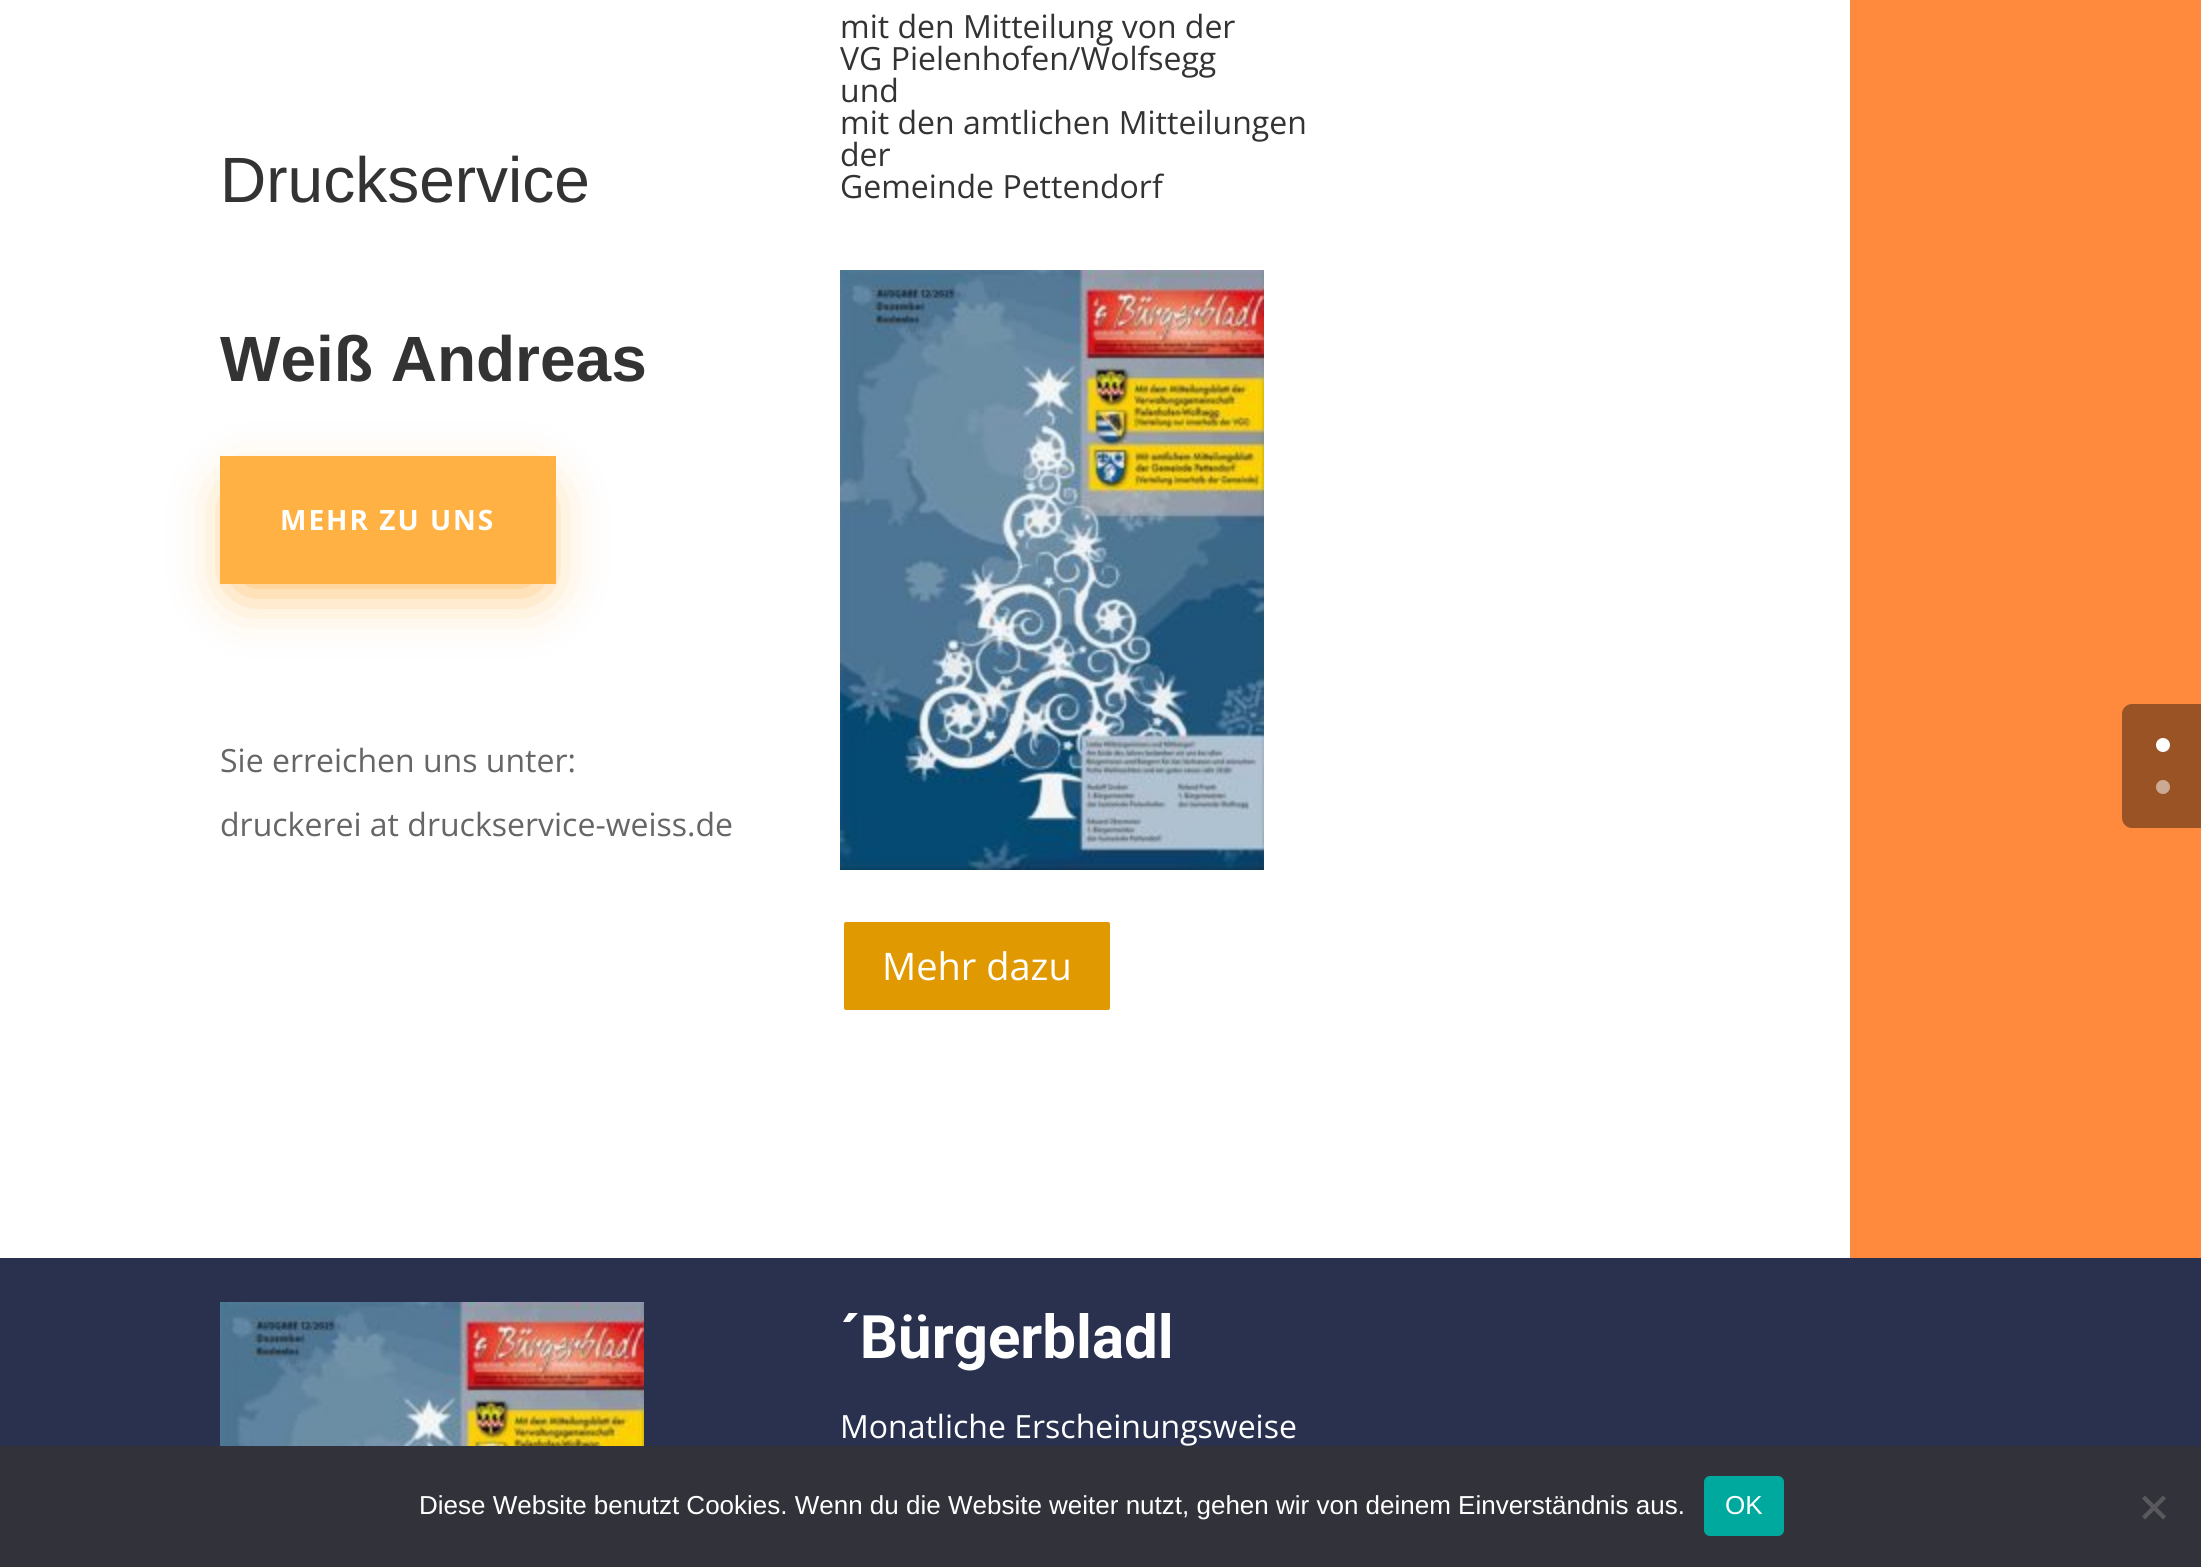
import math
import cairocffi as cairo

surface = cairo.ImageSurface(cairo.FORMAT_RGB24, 2201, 1567)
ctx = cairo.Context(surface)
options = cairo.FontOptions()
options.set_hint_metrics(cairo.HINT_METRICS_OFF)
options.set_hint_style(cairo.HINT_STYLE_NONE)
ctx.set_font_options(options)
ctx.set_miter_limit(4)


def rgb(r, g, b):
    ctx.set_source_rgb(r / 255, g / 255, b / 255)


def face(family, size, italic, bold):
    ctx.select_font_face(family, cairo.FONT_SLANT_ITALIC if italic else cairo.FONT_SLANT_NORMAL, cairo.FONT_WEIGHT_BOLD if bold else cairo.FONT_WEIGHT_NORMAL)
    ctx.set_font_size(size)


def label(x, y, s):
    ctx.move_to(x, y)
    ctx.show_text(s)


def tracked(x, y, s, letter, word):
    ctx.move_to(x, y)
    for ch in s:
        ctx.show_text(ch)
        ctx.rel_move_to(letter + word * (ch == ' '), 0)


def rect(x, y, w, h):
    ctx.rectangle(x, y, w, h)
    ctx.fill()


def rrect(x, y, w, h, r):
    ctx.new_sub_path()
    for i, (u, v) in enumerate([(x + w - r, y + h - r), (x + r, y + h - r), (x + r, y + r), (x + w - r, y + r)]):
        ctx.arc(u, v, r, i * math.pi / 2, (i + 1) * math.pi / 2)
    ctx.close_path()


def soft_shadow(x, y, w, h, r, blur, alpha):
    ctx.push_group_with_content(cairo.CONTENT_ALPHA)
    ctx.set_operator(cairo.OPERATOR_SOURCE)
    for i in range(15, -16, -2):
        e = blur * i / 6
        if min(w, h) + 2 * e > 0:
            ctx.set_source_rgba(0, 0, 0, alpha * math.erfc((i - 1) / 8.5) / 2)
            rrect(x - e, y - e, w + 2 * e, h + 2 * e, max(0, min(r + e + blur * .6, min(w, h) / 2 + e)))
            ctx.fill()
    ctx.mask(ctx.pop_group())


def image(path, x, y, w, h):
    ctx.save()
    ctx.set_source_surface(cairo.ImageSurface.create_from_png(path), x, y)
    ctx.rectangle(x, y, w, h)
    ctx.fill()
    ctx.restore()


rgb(255, 255, 255)
ctx.paint()
rgb(255, 138, 61)
rect(1850, 0, 351, 1258)
face('Liberation Sans', 64, 0, 0)
rgb(51, 51, 51)
label(220, 202, 'Druckservice')
face('Liberation Sans', 64, 0, 1)
label(220, 381, 'Weiß Andreas')
rgb(255, 177, 68)
soft_shadow(240, 496, 296, 88, 0, 30, 1)
rgb(255, 177, 68)
rect(220, 456, 336, 128)
face('Open Sans', 28, 0, 1)
rgb(255, 255, 255)
tracked(280, 530, 'MEHR ZU UNS', 2, 0)
face('Open Sans', 32, 0, 0)
rgb(102, 102, 102)
label(220, 772, 'Sie erreichen uns unter:')
label(220, 836, 'druckerei at druckservice-weiss.de')
rgb(51, 51, 51)
label(840, 38, 'mit den Mitteilung von der')
label(840, 70, 'VG Pielenhofen/Wolfsegg')
label(840, 102, 'und')
label(840, 134, 'mit den amtlichen Mitteilungen')
label(840, 166, 'der')
label(840, 198, 'Gemeinde Pettendorf')
image('image0.png', 840, 270, 424, 600)
rgb(224, 153, 0)
rrect(842, 920, 270, 92, 4)
ctx.fill_preserve()
rgb(255, 255, 255)
ctx.set_line_width(4)
ctx.stroke()
face('Open Sans', 38, 0, 0)
label(882, 980, 'Mehr dazu')
rgb(41, 49, 79)
rect(0, 1258, 2201, 188)
image('image1.png', 220, 1302, 424, 144)
face('Roboto', 60, 0, 1)
rgb(255, 255, 255)
label(840, 1358, '´Bürgerbladl')
face('Open Sans', 32, 0, 0)
label(840, 1438, 'Monatliche Erscheinungsweise')
rgb(153, 83, 37)
ctx.new_path()
ctx.move_to(2132, 704)
ctx.line_to(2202, 704)
ctx.line_to(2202, 828)
ctx.line_to(2132, 828)
ctx.curve_to(2126.5, 828, 2122, 823.5, 2122, 818)
ctx.line_to(2122, 714)
ctx.curve_to(2122, 708.5, 2126.5, 704, 2132, 704)
ctx.close_path()
ctx.fill()
rgb(255, 255, 255)
ctx.arc(2163, 745, 7, 0, 2 * math.pi)
ctx.fill()
rgb(204, 169, 146)
ctx.arc(2163, 787, 7, 0, 2 * math.pi)
ctx.fill()
rgb(50, 50, 58)
rect(0, 1446, 2201, 121)
face('Liberation Sans', 26, 0, 0)
rgb(255, 255, 255)
label(419, 1514, 'Diese Website benutzt Cookies. Wenn du die Website weiter nutzt, gehen wir von deinem Einverständnis aus.')
rgb(0, 169, 157)
rrect(1704, 1476, 80, 60, 6)
ctx.fill()
rgb(255, 255, 255)
label(1725, 1514, 'OK')
rgb(89, 89, 93)
ctx.new_path()
ctx.move_to(2163, 1495.5)
ctx.line_to(2166, 1498.5)
ctx.line_to(2145, 1519.5)
ctx.line_to(2142, 1516.5)
ctx.close_path()
ctx.fill()
ctx.new_path()
ctx.move_to(2142, 1498.5)
ctx.line_to(2145, 1495.5)
ctx.line_to(2166, 1516.5)
ctx.line_to(2163, 1519.5)
ctx.close_path()
ctx.fill()
surface.write_to_png('render.png')
